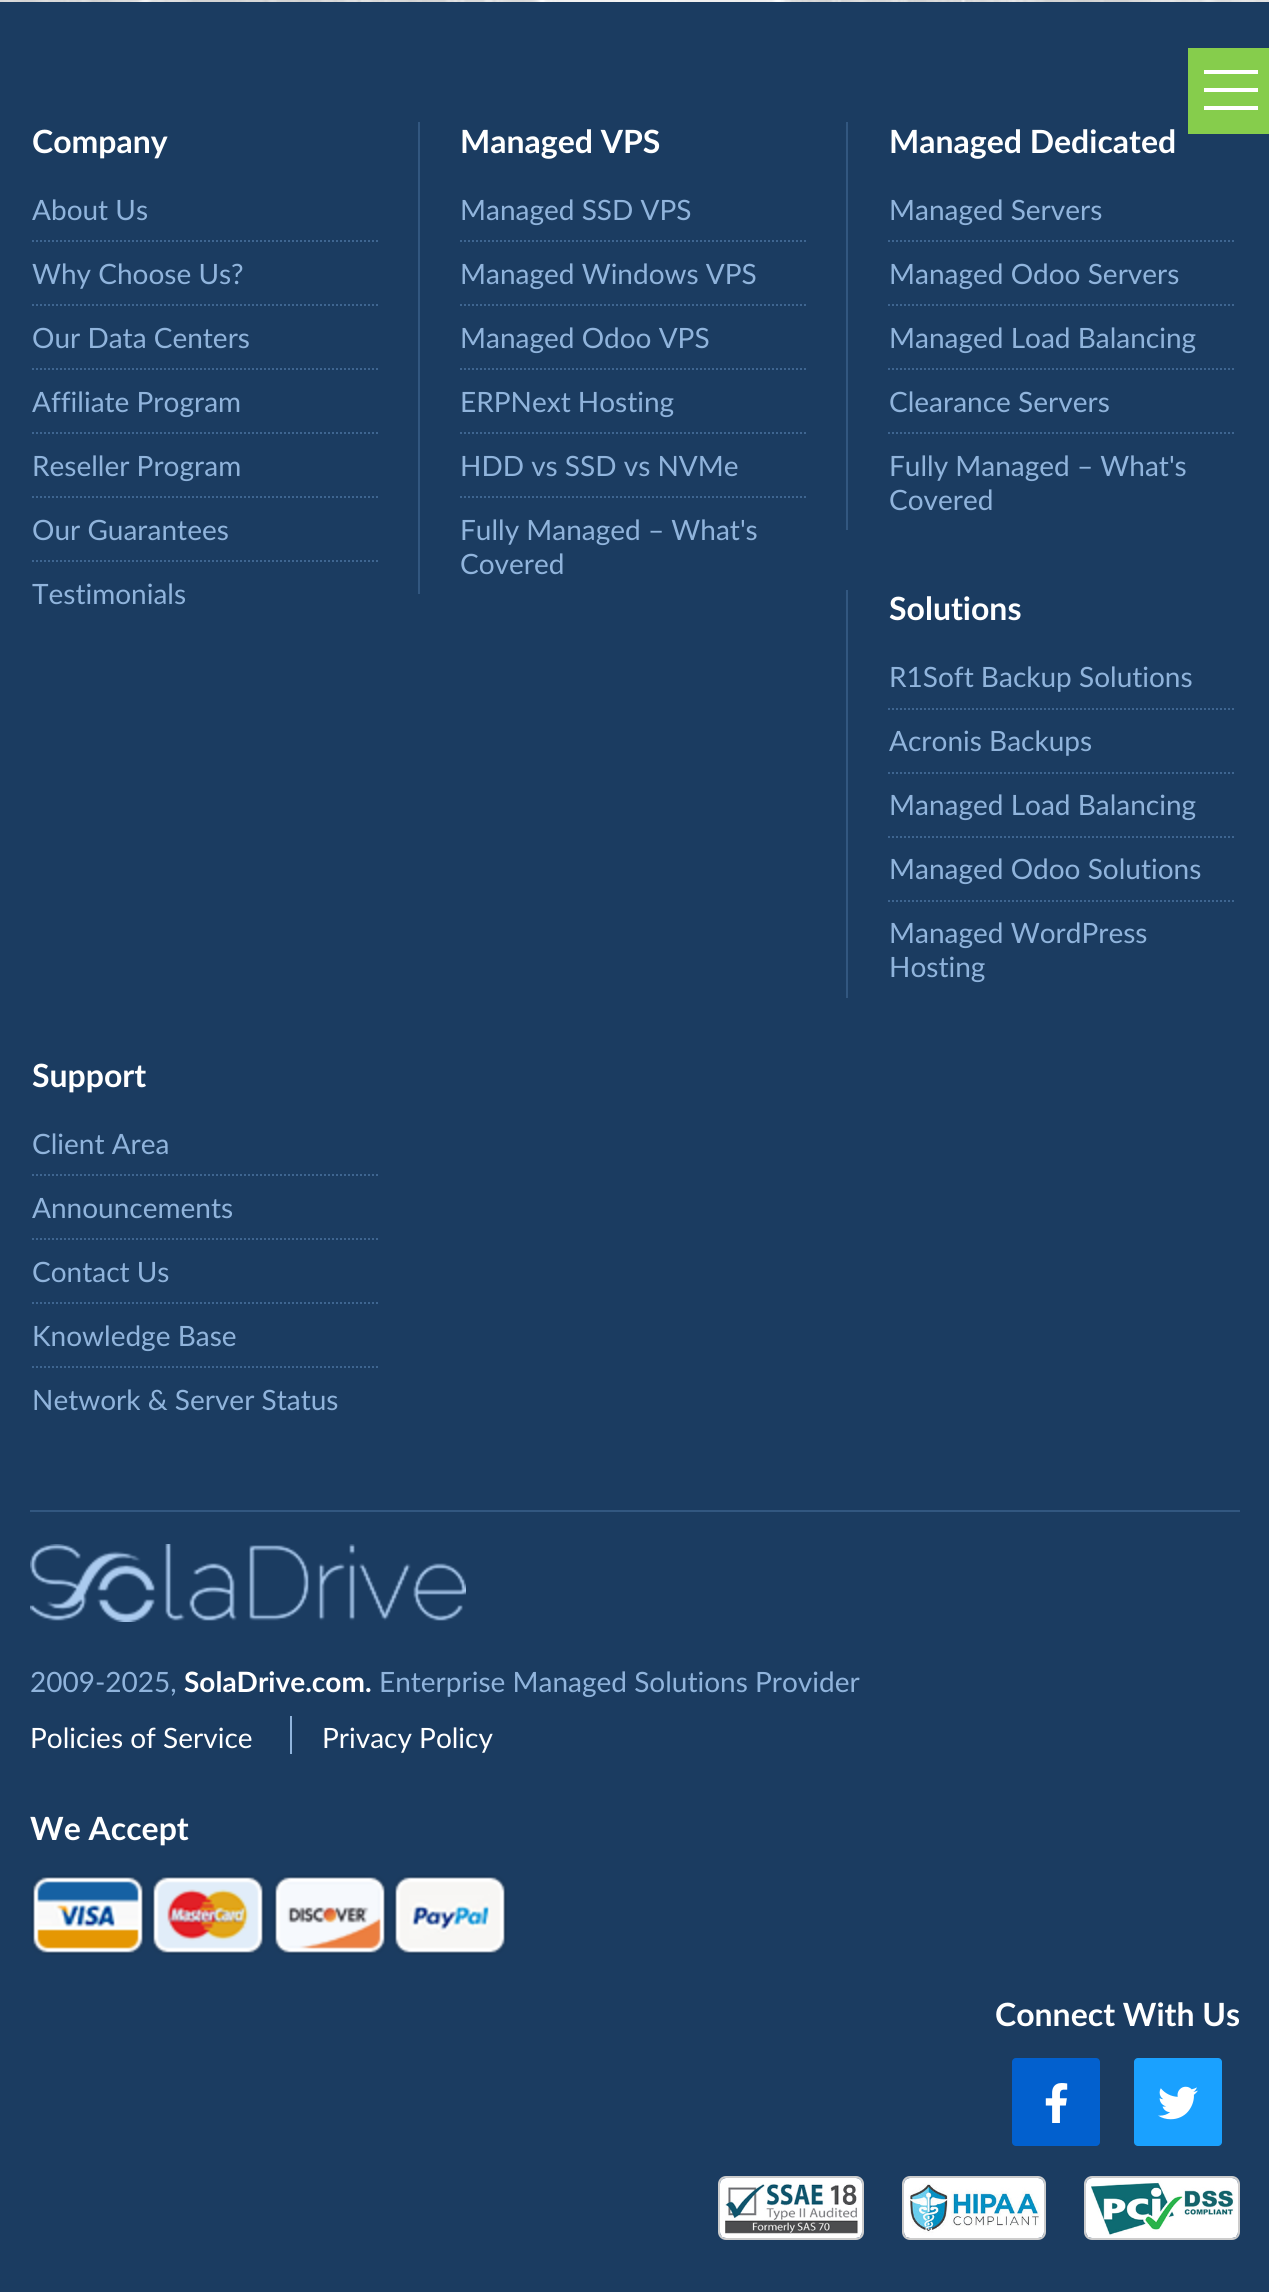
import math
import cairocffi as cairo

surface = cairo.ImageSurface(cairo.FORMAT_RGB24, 1269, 2292)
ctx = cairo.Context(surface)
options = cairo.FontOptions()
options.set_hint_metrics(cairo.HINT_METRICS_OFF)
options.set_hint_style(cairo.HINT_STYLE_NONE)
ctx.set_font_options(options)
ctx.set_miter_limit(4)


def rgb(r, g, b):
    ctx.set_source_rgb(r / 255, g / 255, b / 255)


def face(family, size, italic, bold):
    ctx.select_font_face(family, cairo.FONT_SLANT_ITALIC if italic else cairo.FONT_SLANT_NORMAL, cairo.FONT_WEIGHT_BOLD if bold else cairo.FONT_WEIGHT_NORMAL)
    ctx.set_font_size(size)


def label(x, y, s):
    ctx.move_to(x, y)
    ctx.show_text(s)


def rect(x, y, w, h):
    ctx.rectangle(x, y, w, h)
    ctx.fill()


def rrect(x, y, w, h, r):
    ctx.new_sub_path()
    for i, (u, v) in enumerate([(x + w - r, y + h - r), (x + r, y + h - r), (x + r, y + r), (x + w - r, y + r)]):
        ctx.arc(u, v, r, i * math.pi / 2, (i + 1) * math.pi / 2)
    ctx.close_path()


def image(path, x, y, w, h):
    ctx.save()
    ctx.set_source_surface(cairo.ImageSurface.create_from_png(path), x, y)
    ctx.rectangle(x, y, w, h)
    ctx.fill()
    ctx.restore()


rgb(27, 60, 97)
ctx.paint()
rgb(134, 205, 76)
rect(1188, 48, 81, 86)
rgb(255, 255, 255)
rect(1204, 70, 54, 4)
rect(1204, 88, 54, 4)
rect(1204, 106, 54, 4)
image('image0.png', 0, 0, 1269, 2)
rgb(50, 87, 128)
rect(30, 1510, 1210, 2)
face('Lato', 32, 0, 1)
rgb(255, 255, 255)
label(32, 153, 'Company')
face('Lato', 28, 0, 0)
rgb(144, 180, 220)
label(32, 220, 'About Us')
ctx.new_path()
ctx.move_to(32, 241)
ctx.line_to(378, 241)
rgb(62, 101, 144)
ctx.set_dash([2, 2])
ctx.stroke()
rgb(144, 180, 220)
label(32, 284, 'Why Choose Us?')
ctx.new_path()
ctx.move_to(32, 305)
ctx.line_to(378, 305)
rgb(62, 101, 144)
ctx.stroke()
rgb(144, 180, 220)
label(32, 348, 'Our Data Centers')
ctx.new_path()
ctx.move_to(32, 369)
ctx.line_to(378, 369)
rgb(62, 101, 144)
ctx.stroke()
rgb(144, 180, 220)
label(32, 412, 'Affiliate Program')
ctx.new_path()
ctx.move_to(32, 433)
ctx.line_to(378, 433)
rgb(62, 101, 144)
ctx.stroke()
rgb(144, 180, 220)
label(32, 476, 'Reseller Program')
ctx.new_path()
ctx.move_to(32, 497)
ctx.line_to(378, 497)
rgb(62, 101, 144)
ctx.stroke()
rgb(144, 180, 220)
label(32, 540, 'Our Guarantees')
ctx.new_path()
ctx.move_to(32, 561)
ctx.line_to(378, 561)
rgb(62, 101, 144)
ctx.stroke()
rgb(144, 180, 220)
label(32, 604, 'Testimonials')
rgb(50, 87, 128)
rect(418, 122, 2, 472)
face('Lato', 32, 0, 1)
rgb(255, 255, 255)
label(460, 153, 'Managed VPS')
face('Lato', 28, 0, 0)
rgb(144, 180, 220)
label(460, 220, 'Managed SSD VPS')
ctx.new_path()
ctx.move_to(460, 241)
ctx.line_to(806, 241)
rgb(62, 101, 144)
ctx.stroke()
rgb(144, 180, 220)
label(460, 284, 'Managed Windows VPS')
ctx.new_path()
ctx.move_to(460, 305)
ctx.line_to(806, 305)
rgb(62, 101, 144)
ctx.stroke()
rgb(144, 180, 220)
label(460, 348, 'Managed Odoo VPS')
ctx.new_path()
ctx.move_to(460, 369)
ctx.line_to(806, 369)
rgb(62, 101, 144)
ctx.stroke()
rgb(144, 180, 220)
label(460, 412, 'ERPNext Hosting')
ctx.new_path()
ctx.move_to(460, 433)
ctx.line_to(806, 433)
rgb(62, 101, 144)
ctx.stroke()
rgb(144, 180, 220)
label(460, 476, 'HDD vs SSD vs NVMe')
ctx.new_path()
ctx.move_to(460, 497)
ctx.line_to(806, 497)
rgb(62, 101, 144)
ctx.stroke()
rgb(144, 180, 220)
label(460, 540, 'Fully Managed – What\'s')
label(460, 574, 'Covered')
rgb(50, 87, 128)
rect(846, 122, 2, 408)
face('Lato', 32, 0, 1)
rgb(255, 255, 255)
label(889, 153, 'Managed Dedicated')
face('Lato', 28, 0, 0)
rgb(144, 180, 220)
label(889, 220, 'Managed Servers')
ctx.new_path()
ctx.move_to(888, 241)
ctx.line_to(1234, 241)
rgb(62, 101, 144)
ctx.stroke()
rgb(144, 180, 220)
label(889, 284, 'Managed Odoo Servers')
ctx.new_path()
ctx.move_to(888, 305)
ctx.line_to(1234, 305)
rgb(62, 101, 144)
ctx.stroke()
rgb(144, 180, 220)
label(889, 348, 'Managed Load Balancing')
ctx.new_path()
ctx.move_to(888, 369)
ctx.line_to(1234, 369)
rgb(62, 101, 144)
ctx.stroke()
rgb(144, 180, 220)
label(889, 412, 'Clearance Servers')
ctx.new_path()
ctx.move_to(888, 433)
ctx.line_to(1234, 433)
rgb(62, 101, 144)
ctx.stroke()
rgb(144, 180, 220)
label(889, 476, 'Fully Managed – What\'s')
label(889, 510, 'Covered')
rgb(50, 87, 128)
rect(846, 590, 2, 408)
face('Lato', 32, 0, 1)
rgb(255, 255, 255)
label(889, 620, 'Solutions')
face('Lato', 28, 0, 0)
rgb(144, 180, 220)
label(889, 687, 'R1Soft Backup Solutions')
ctx.new_path()
ctx.move_to(888, 709)
ctx.line_to(1234, 709)
rgb(62, 101, 144)
ctx.stroke()
rgb(144, 180, 220)
label(889, 751, 'Acronis Backups')
ctx.new_path()
ctx.move_to(888, 773)
ctx.line_to(1234, 773)
rgb(62, 101, 144)
ctx.stroke()
rgb(144, 180, 220)
label(889, 815, 'Managed Load Balancing')
ctx.new_path()
ctx.move_to(888, 837)
ctx.line_to(1234, 837)
rgb(62, 101, 144)
ctx.stroke()
rgb(144, 180, 220)
label(889, 879, 'Managed Odoo Solutions')
ctx.new_path()
ctx.move_to(888, 901)
ctx.line_to(1234, 901)
rgb(62, 101, 144)
ctx.stroke()
rgb(144, 180, 220)
label(889, 943, 'Managed WordPress')
label(889, 977, 'Hosting')
face('Lato', 32, 0, 1)
rgb(255, 255, 255)
label(32, 1087, 'Support')
face('Lato', 28, 0, 0)
rgb(144, 180, 220)
label(32, 1154, 'Client Area')
ctx.new_path()
ctx.move_to(32, 1175)
ctx.line_to(378, 1175)
rgb(62, 101, 144)
ctx.stroke()
rgb(144, 180, 220)
label(32, 1218, 'Announcements')
ctx.new_path()
ctx.move_to(32, 1239)
ctx.line_to(378, 1239)
rgb(62, 101, 144)
ctx.stroke()
rgb(144, 180, 220)
label(32, 1282, 'Contact Us')
ctx.new_path()
ctx.move_to(32, 1303)
ctx.line_to(378, 1303)
rgb(62, 101, 144)
ctx.stroke()
rgb(144, 180, 220)
label(32, 1346, 'Knowledge Base')
ctx.new_path()
ctx.move_to(32, 1367)
ctx.line_to(378, 1367)
rgb(62, 101, 144)
ctx.stroke()
rgb(144, 180, 220)
label(32, 1410, 'Network & Server Status')
image('image1.png', 30, 1544, 436, 78)
label(30, 1692, '2009-2025,')
face('Lato', 28, 0, 1)
rgb(255, 255, 255)
label(184, 1692, 'SolaDrive.com.')
face('Lato', 28, 0, 0)
rgb(144, 180, 220)
label(379, 1692, 'Enterprise Managed Solutions Provider')
rgb(255, 255, 255)
label(30, 1748, 'Policies of Service')
label(322, 1748, 'Privacy Policy')
rgb(144, 180, 220)
rect(290, 1716, 2, 38)
face('Lato', 32, 0, 1)
rgb(255, 255, 255)
label(30, 1840, 'We Accept')
image('image2.png', 31, 1875, 476, 80)
label(995, 2026, 'Connect With Us')
rgb(2, 96, 206)
rrect(1012, 2058, 88, 88, 4)
ctx.fill()
image('image3.png', 1045, 2083, 23, 40)
rgb(26, 161, 255)
rrect(1134, 2058, 88, 88, 4)
ctx.fill()
image('image4.png', 1158, 2086, 40, 34)
rrect(719, 2177, 144, 62, 7)
rgb(204, 204, 204)
ctx.set_dash([])
ctx.stroke()
image('image5.png', 720, 2178, 142, 60)
rrect(903, 2177, 142, 62, 7)
ctx.stroke()
image('image6.png', 904, 2178, 140, 60)
rrect(1085, 2177, 154, 62, 7)
ctx.stroke()
image('image7.png', 1086, 2178, 152, 60)
surface.write_to_png('render.png')
